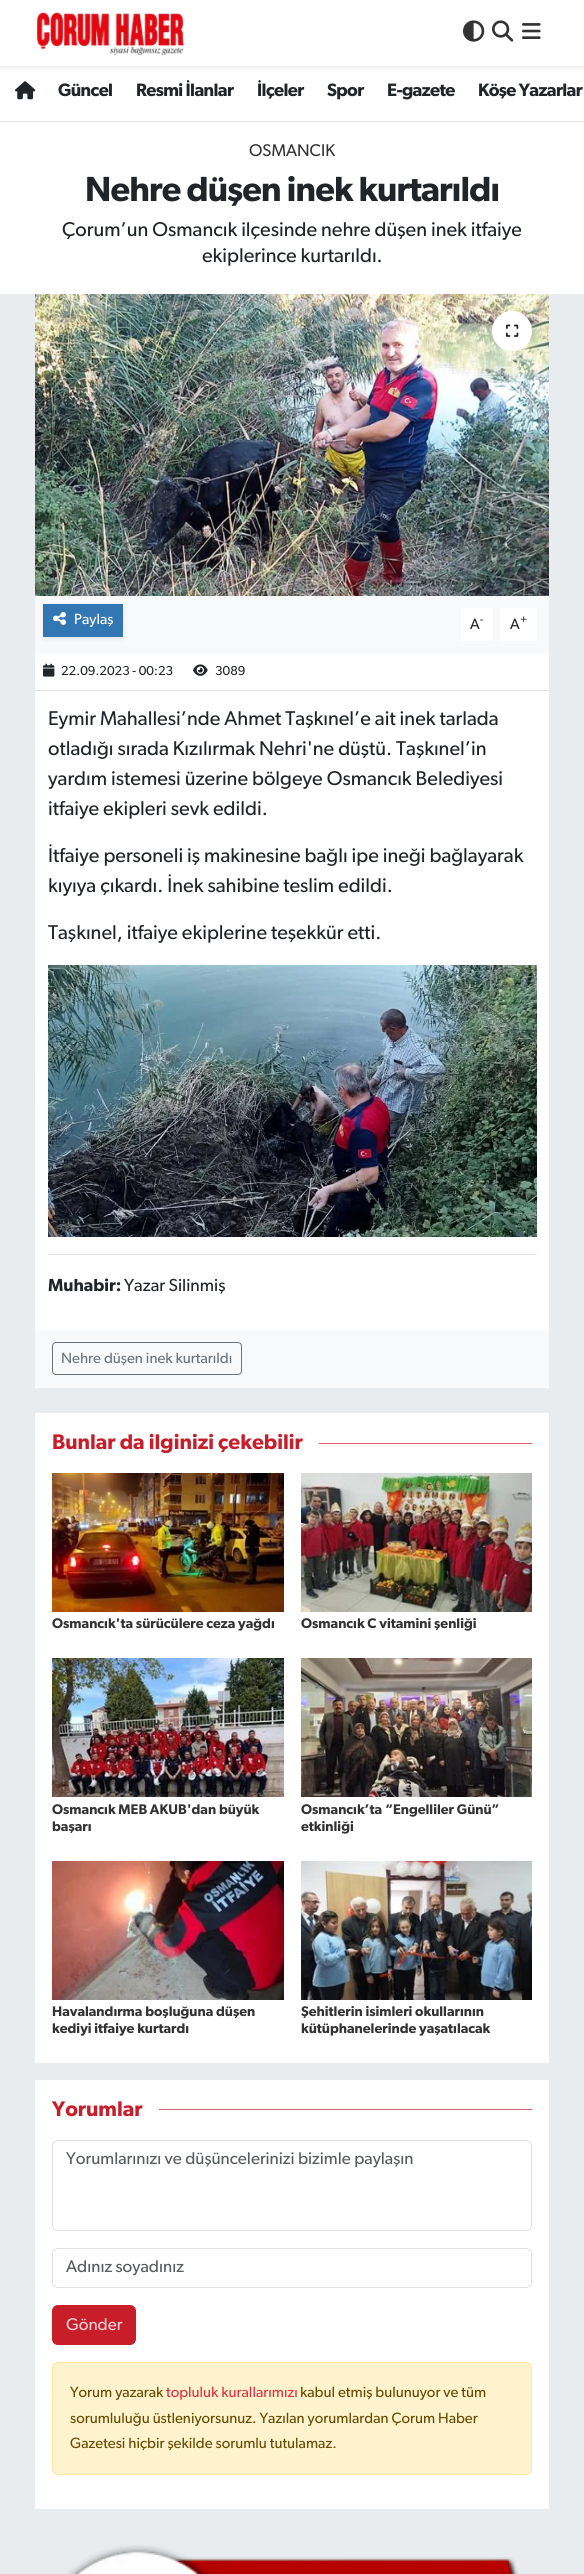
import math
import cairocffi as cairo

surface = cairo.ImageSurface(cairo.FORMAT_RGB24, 584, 2574)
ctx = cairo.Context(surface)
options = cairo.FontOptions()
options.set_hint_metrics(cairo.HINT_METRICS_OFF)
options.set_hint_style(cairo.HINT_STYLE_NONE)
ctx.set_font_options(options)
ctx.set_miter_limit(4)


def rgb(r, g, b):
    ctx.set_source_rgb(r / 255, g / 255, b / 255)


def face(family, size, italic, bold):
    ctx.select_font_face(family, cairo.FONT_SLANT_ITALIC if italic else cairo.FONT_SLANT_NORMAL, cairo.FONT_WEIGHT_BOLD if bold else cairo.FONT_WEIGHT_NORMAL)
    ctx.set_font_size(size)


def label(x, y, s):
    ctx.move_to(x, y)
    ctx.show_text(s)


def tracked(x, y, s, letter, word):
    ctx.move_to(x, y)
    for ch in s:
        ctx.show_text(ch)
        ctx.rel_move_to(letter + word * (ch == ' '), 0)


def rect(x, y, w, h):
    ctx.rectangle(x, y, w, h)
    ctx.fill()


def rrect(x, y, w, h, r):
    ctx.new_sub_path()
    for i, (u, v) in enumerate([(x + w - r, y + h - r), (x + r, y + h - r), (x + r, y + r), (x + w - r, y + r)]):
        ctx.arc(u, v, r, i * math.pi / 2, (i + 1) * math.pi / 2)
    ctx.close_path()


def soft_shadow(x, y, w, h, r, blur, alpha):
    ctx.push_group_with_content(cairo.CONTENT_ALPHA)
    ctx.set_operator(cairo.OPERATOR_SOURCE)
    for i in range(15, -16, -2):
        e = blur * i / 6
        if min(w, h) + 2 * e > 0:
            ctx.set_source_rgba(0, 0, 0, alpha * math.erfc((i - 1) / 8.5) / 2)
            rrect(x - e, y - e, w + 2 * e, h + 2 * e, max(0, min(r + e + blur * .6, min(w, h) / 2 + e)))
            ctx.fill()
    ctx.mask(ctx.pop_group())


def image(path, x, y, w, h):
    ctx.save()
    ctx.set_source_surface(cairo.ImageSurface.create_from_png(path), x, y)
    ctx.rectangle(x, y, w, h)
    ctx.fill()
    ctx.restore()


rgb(233, 236, 239)
ctx.paint()
rgb(255, 255, 255)
rect(0, 66, 584, 55)
rgb(0, 0, 0)
soft_shadow(0, 2, 584, 66, 0, 2, 0.07)
rgb(255, 255, 255)
rect(0, 0, 584, 66)
image('image0.png', 36, 12, 149, 44)
image('image1.png', 463, 20, 22, 22)
image('image2.png', 492, 20, 22, 22)
image('image3.png', 522, 23, 19, 16)
rgb(230, 230, 230)
rect(0, 121, 584, 1)
image('image4.png', 15, 81, 21, 19)
face('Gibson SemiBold', 18, 0, 0)
rgb(33, 37, 41)
tracked(58, 96, 'Güncel', -0.6, 0)
tracked(136, 96, 'Resmi İlanlar', -0.6, 0)
tracked(257, 96, 'İlçeler', -0.6, 0)
tracked(327, 96, 'Spor', -0.6, 0)
tracked(387, 96, 'E-gazete', -0.6, 0)
tracked(478, 96, 'Köşe Yazarlar', -0.6, 0)
rgb(255, 255, 255)
rect(0, 122, 584, 172)
face('Gibson', 17, 0, 0)
rgb(51, 51, 51)
label(249, 156, 'OSMANCIK')
face('Gibson SemiBold', 35, 0, 0)
rgb(33, 37, 41)
tracked(85, 201, 'Nehre düşen inek kurtarıldı', -0.8, 0)
face('Gibson', 20, 0, 0)
label(62, 236, 'Çorum’un Osmancık ilçesinde nehre düşen inek itfaiye')
label(202, 262, 'ekiplerince kurtarıldı.')
rgb(255, 255, 255)
rect(35, 654, 514, 734)
image('image5.png', 35, 294, 514, 302)
ctx.arc(512, 331, 20, 0, 2 * math.pi)
ctx.fill()
image('image6.png', 506, 324, 13, 13)
rgb(248, 249, 250)
rect(35, 596, 514, 58)
rgb(0, 0, 0)
soft_shadow(43, 606, 80, 33, 0, 2, 0.07)
rgb(50, 118, 179)
rect(43, 604, 80, 33)
image('image7.png', 53, 611, 13, 14)
face('Gibson', 14.9, 0, 0)
rgb(255, 255, 255)
label(74, 624, 'Paylaş')
rect(461, 608, 32, 33)
rgb(33, 37, 41)
label(470, 629, 'A')
face('Gibson', 11, 0, 0)
label(480, 623, '-')
rgb(255, 255, 255)
rect(500, 608, 37, 33)
face('Gibson', 14.9, 0, 0)
rgb(33, 37, 41)
label(510, 629, 'A')
face('Gibson', 11, 0, 0)
label(520, 623, '+')
rgb(222, 226, 230)
rect(35, 690, 514, 1)
image('image8.png', 43, 663, 12, 14)
face('Gibson', 13, 0, 0)
rgb(33, 37, 41)
label(61, 675, '22.09.2023 - 00:23')
image('image9.png', 193, 664, 15, 12)
label(215, 675, '3089')
face('Gibson', 20, 0, 0)
label(48, 725, 'Eymir Mahallesi’nde Ahmet Taşkınel’e ait inek tarlada')
label(48, 755, 'otladığı sırada Kızılırmak Nehri\'ne düştü. Taşkınel’in')
label(48, 785, 'yardım istemesi üzerine bölgeye Osmancık Belediyesi')
label(48, 815, 'itfaiye ekipleri sevk edildi.')
label(48, 862, 'İtfaiye personeli iş makinesine bağlı ipe ineği bağlayarak')
label(48, 892, 'kıyıya çıkardı. İnek sahibine teslim edildi.')
label(48, 939, 'Taşkınel, itfaiye ekiplerine teşekkür etti.')
image('image10.png', 48, 965, 489, 272)
rgb(222, 226, 230)
rect(48, 1254, 489, 1)
face('Gibson SemiBold', 17.5, 0, 0)
rgb(33, 37, 41)
label(48, 1291, 'Muhabir:')
face('Gibson', 17.5, 0, 0)
label(124, 1291, 'Yazar Silinmiş')
rgb(248, 249, 250)
ctx.new_path()
ctx.move_to(35, 1330)
ctx.line_to(549, 1330)
ctx.line_to(549, 1383)
ctx.curve_to(549, 1386, 547, 1388, 544, 1388)
ctx.line_to(40, 1388)
ctx.curve_to(37, 1388, 35, 1386, 35, 1383)
ctx.close_path()
ctx.fill()
rrect(52.5, 1342.5, 189, 32, 3.5)
rgb(108, 117, 125)
ctx.set_line_width(1)
ctx.stroke()
face('Gibson', 14.9, 0, 0)
label(61, 1363, 'Nehre düşen inek kurtarıldı')
rgb(255, 255, 255)
rect(35, 1413, 514, 650)
face('Gibson SemiBold', 21.25, 0, 0)
rgb(200, 30, 42)
label(52, 1449, 'Bunlar da ilginizi çekebilir')
rgb(217, 98, 106)
rect(319, 1443, 213, 1)
image('image11.png', 52, 1473, 232, 139)
face('Gibson SemiBold', 14, 0, 0)
rgb(51, 51, 51)
label(52, 1628, 'Osmancık\'ta sürücülere ceza yağdı')
image('image12.png', 301, 1473, 231, 139)
label(301, 1628, 'Osmancık C vitamini şenliği')
image('image13.png', 52, 1658, 232, 139)
label(52, 1814, 'Osmancık MEB AKUB\'dan büyük')
label(52, 1831, 'başarı')
image('image14.png', 301, 1658, 231, 139)
label(301, 1814, 'Osmancık’ta “Engelliler Günü”')
label(301, 1831, 'etkinliği')
image('image15.png', 52, 1861, 232, 139)
label(52, 2016, 'Havalandırma boşluğuna düşen')
label(52, 2033, 'kediyi itfaiye kurtardı')
image('image16.png', 301, 1861, 231, 139)
label(301, 2016, 'Şehitlerin isimleri okullarının')
label(301, 2033, 'kütüphanelerinde yaşatılacak')
rgb(255, 255, 255)
rect(35, 2080, 514, 429)
face('Gibson SemiBold', 21.25, 0, 0)
rgb(200, 30, 42)
label(52, 2116, 'Yorumlar')
rgb(217, 98, 106)
rect(159, 2109, 373, 1)
rrect(52.5, 2140.5, 479, 90, 5.5)
rgb(222, 226, 230)
ctx.stroke()
face('Gibson', 17, 0, 0)
rgb(89, 92, 95)
label(66, 2164, 'Yorumlarınızı ve düşüncelerinizi bizimle paylaşın')
rrect(52.5, 2248.5, 479, 39, 5.5)
rgb(222, 226, 230)
ctx.stroke()
rgb(89, 92, 95)
label(66, 2272, 'Adınız soyadınız')
rgb(200, 30, 42)
rrect(52.5, 2305.5, 83, 39, 5.5)
ctx.fill_preserve()
ctx.stroke()
rgb(244, 210, 212)
label(66, 2330, 'Gönder')
rgb(255, 243, 205)
rrect(52.5, 2362.5, 479, 112, 5.5)
ctx.fill_preserve()
rgb(255, 230, 156)
ctx.stroke()
face('Gibson', 14.9, 0, 0)
rgb(102, 77, 3)
label(70, 2397, 'Yorum yazarak')
rgb(220, 53, 69)
label(166, 2397, 'topluluk kurallarımızı')
rgb(102, 77, 3)
label(300, 2397, 'kabul etmiş bulunuyor ve tüm')
label(70, 2423, 'sorumluluğu üstleniyorsunuz. Yazılan yorumlardan Çorum Haber')
label(70, 2448, 'Gazetesi hiçbir şekilde sorumlu tutulamaz.')
image('image17.png', 68, 2545, 450, 29)
surface.write_to_png('render.png')
